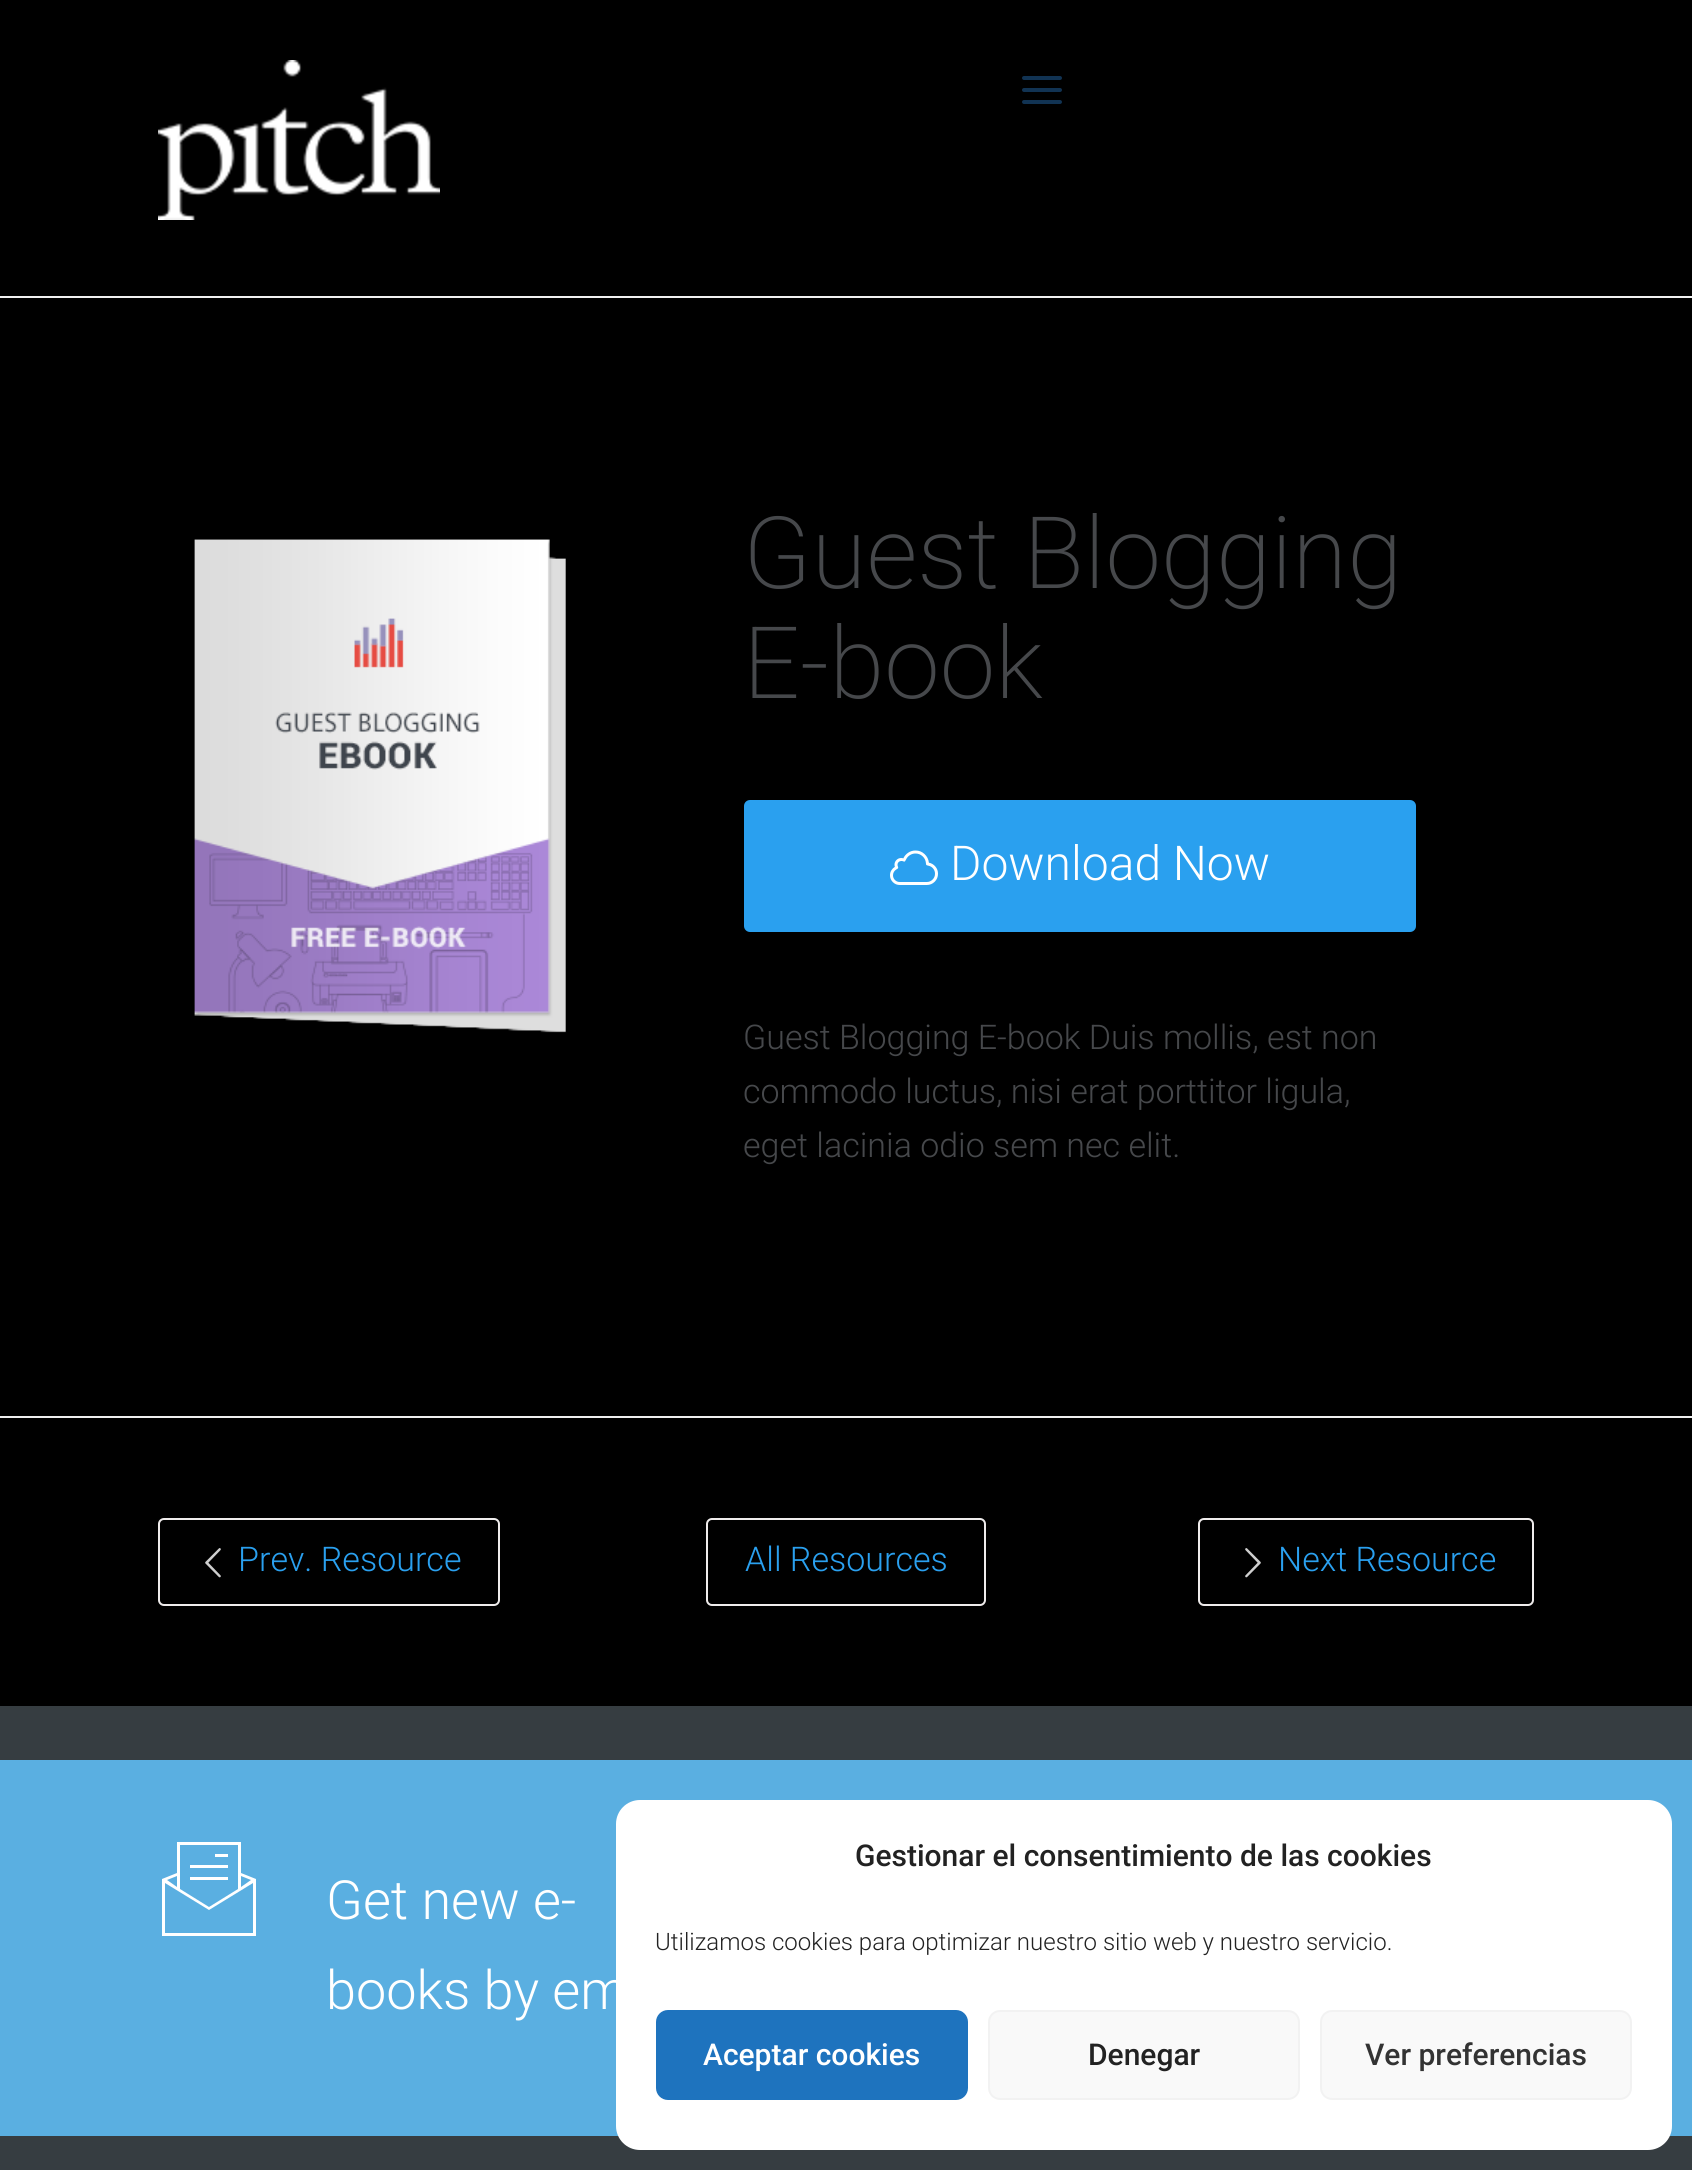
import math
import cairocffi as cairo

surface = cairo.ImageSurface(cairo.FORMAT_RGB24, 1692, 2170)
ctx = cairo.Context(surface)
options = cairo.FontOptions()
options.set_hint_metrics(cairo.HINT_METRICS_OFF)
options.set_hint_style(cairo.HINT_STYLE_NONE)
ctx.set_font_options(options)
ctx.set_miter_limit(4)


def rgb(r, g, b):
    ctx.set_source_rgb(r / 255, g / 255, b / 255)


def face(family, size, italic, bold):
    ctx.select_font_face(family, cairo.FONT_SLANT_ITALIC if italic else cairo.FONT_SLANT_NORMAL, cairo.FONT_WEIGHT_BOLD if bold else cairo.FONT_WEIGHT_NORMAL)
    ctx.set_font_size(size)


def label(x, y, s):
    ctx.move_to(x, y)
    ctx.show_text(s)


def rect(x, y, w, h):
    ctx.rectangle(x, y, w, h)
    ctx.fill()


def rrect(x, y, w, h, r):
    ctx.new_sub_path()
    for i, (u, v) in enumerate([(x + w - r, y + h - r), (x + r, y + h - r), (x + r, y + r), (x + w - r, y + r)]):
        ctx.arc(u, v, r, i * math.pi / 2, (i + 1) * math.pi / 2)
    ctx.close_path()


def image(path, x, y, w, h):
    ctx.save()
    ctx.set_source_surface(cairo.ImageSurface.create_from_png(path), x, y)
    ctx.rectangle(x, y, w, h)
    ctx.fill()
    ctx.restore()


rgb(0, 0, 0)
ctx.paint()
image('image0.png', 158, 60, 282, 160)
image('image1.png', 1022, 76, 40, 28)
rgb(241, 241, 241)
rect(0, 296, 1692, 2)
image('image2.png', 194, 539, 372, 494)
face('Roboto ExtraLight', 100, 0, 0)
rgb(70, 72, 75)
label(743, 588, 'Guest Blogging')
label(743, 698, 'E-book')
rgb(42, 160, 239)
rrect(744, 800, 672, 132, 6)
ctx.fill()
image('image3.png', 890, 850, 48, 35)
face('Roboto Light', 48, 0, 0)
rgb(255, 255, 255)
label(950, 880, 'Download Now')
face('Roboto Light', 34, 0, 0)
rgb(70, 72, 75)
label(743, 1049, 'Guest Blogging E-book Duis mollis, est non')
label(743, 1103, 'commodo luctus, nisi erat porttitor ligula,')
label(743, 1157, 'eget lacinia odio sem nec elit.')
rgb(238, 238, 238)
rect(0, 1416, 1692, 2)
rrect(159, 1519, 340, 86, 5)
rgb(239, 236, 236)
ctx.stroke()
image('image4.png', 205, 1548, 16, 30)
rgb(42, 160, 239)
label(238, 1571, 'Prev. Resource')
rrect(707, 1519, 278, 86, 5)
rgb(239, 236, 236)
ctx.stroke()
rgb(42, 160, 239)
label(745, 1571, 'All Resources')
rrect(1199, 1519, 334, 86, 5)
rgb(239, 236, 236)
ctx.stroke()
image('image5.png', 1245, 1548, 16, 30)
rgb(42, 160, 239)
label(1278, 1571, 'Next Resource')
rgb(54, 61, 65)
rect(0, 1706, 1692, 54)
rgb(90, 175, 225)
rect(0, 1760, 1692, 376)
rgb(255, 255, 255)
ctx.new_path()
ctx.move_to(215, 1854)
ctx.line_to(228, 1854)
ctx.line_to(228, 1857)
ctx.line_to(215, 1857)
ctx.close_path()
ctx.move_to(190, 1865)
ctx.line_to(228, 1865)
ctx.line_to(228, 1868)
ctx.line_to(190, 1868)
ctx.close_path()
ctx.move_to(190, 1877)
ctx.line_to(228, 1877)
ctx.line_to(228, 1880)
ctx.line_to(190, 1880)
ctx.close_path()
ctx.move_to(241, 1842)
ctx.line_to(177, 1842)
ctx.line_to(177, 1873)
ctx.line_to(162, 1879)
ctx.line_to(162, 1936)
ctx.line_to(256, 1936)
ctx.line_to(256, 1879)
ctx.line_to(241, 1873)
ctx.close_path()
ctx.move_to(238, 1845)
ctx.line_to(238, 1889)
ctx.line_to(209, 1907)
ctx.line_to(180, 1889)
ctx.line_to(180, 1845)
ctx.close_path()
ctx.move_to(177, 1887)
ctx.line_to(167, 1880)
ctx.line_to(177, 1876)
ctx.close_path()
ctx.move_to(165, 1933)
ctx.line_to(165, 1883)
ctx.line_to(209, 1910)
ctx.line_to(253, 1883)
ctx.line_to(253, 1933)
ctx.close_path()
ctx.move_to(251, 1880)
ctx.line_to(241, 1887)
ctx.line_to(241, 1876)
ctx.close_path()
ctx.fill()
face('Roboto Light', 54, 0, 0)
label(326, 1919, 'Get new e-')
label(326, 2009, 'books by em')
rgb(54, 61, 65)
rect(0, 2136, 1692, 34)
rgb(255, 255, 255)
rrect(616, 1800, 1056, 350, 24)
ctx.fill()
face('Roboto Medium', 30, 0, 0)
rgb(34, 34, 34)
label(855, 1866, 'Gestionar el consentimiento de las cookies')
face('Roboto Light', 24, 0, 0)
label(655, 1950, 'Utilizamos cookies para optimizar nuestro sitio web y nuestro servicio.')
rgb(30, 115, 190)
rrect(657, 2011, 310, 88, 11)
ctx.fill_preserve()
ctx.stroke()
face('Roboto Medium', 30, 0, 0)
rgb(255, 255, 255)
label(703, 2065, 'Aceptar cookies')
rgb(249, 249, 249)
rrect(989, 2011, 310, 88, 11)
ctx.fill_preserve()
rgb(242, 242, 242)
ctx.stroke()
rgb(34, 34, 34)
label(1088, 2065, 'Denegar')
rgb(249, 249, 249)
rrect(1321, 2011, 310, 88, 11)
ctx.fill_preserve()
rgb(242, 242, 242)
ctx.stroke()
rgb(51, 51, 51)
label(1365, 2065, 'Ver preferencias')
surface.write_to_png('render.png')
